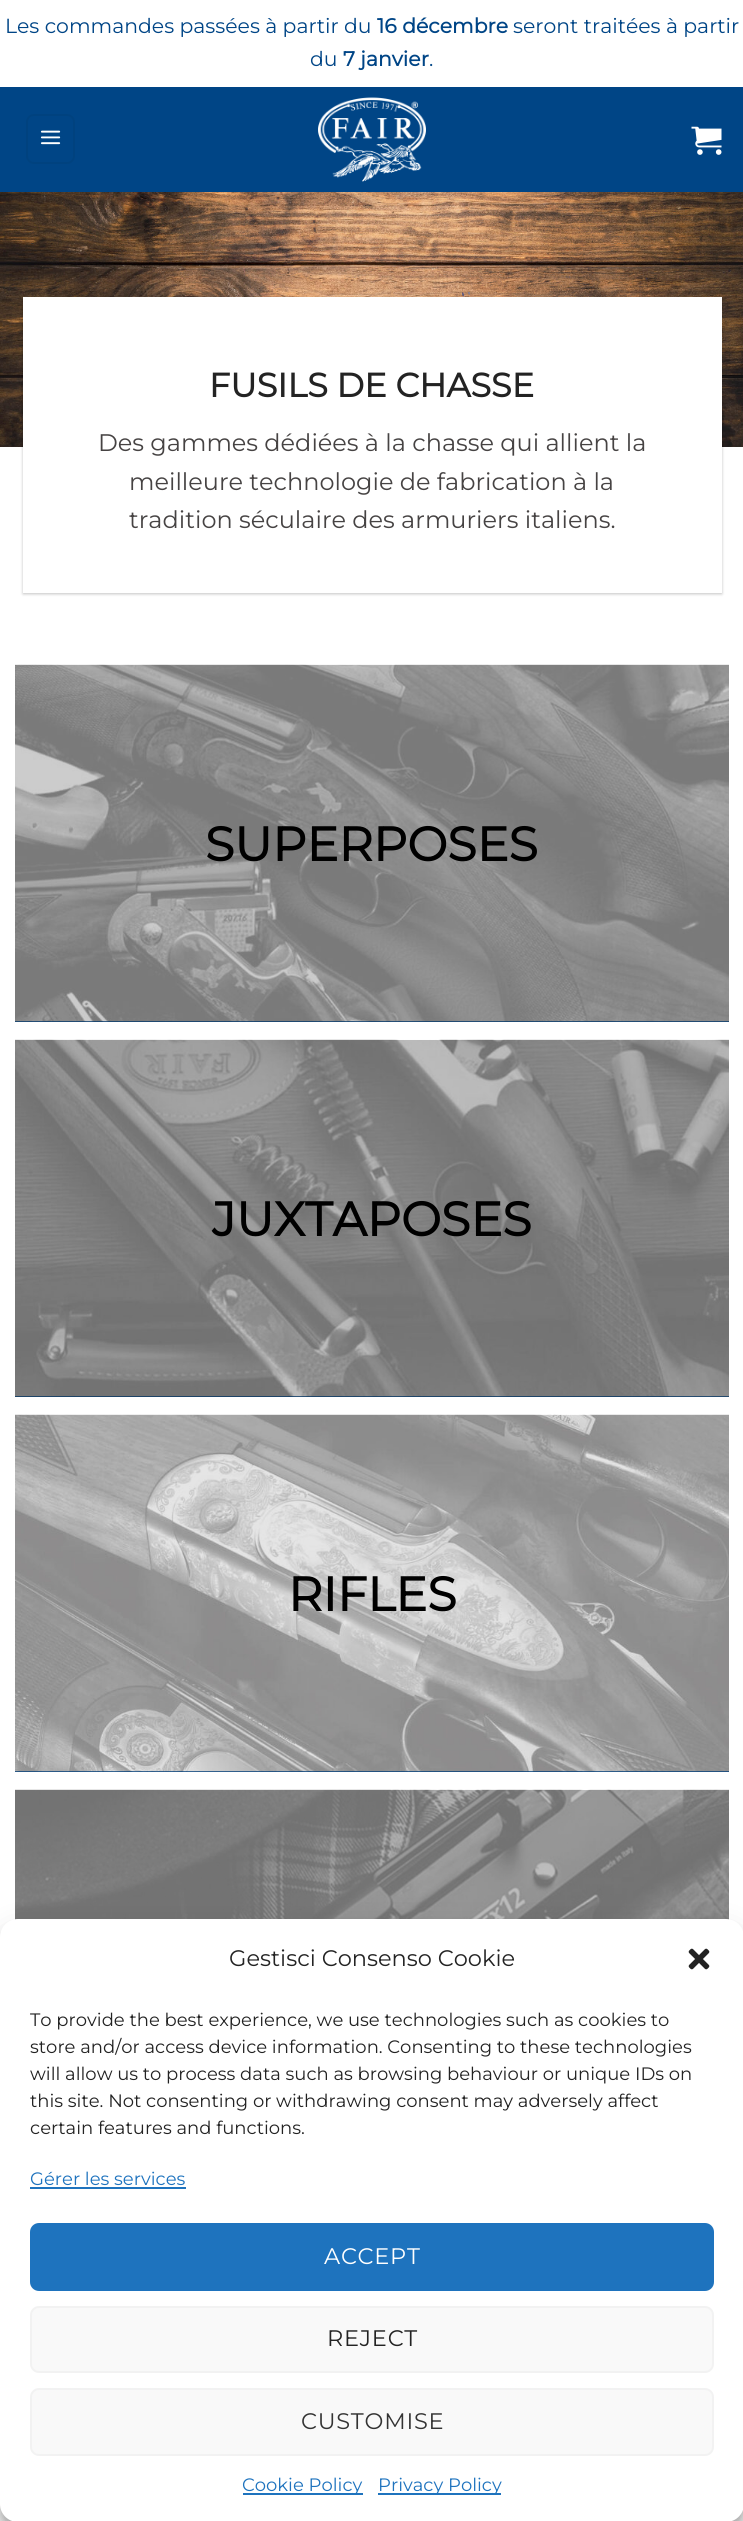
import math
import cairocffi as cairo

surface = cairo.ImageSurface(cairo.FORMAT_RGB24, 743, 2521)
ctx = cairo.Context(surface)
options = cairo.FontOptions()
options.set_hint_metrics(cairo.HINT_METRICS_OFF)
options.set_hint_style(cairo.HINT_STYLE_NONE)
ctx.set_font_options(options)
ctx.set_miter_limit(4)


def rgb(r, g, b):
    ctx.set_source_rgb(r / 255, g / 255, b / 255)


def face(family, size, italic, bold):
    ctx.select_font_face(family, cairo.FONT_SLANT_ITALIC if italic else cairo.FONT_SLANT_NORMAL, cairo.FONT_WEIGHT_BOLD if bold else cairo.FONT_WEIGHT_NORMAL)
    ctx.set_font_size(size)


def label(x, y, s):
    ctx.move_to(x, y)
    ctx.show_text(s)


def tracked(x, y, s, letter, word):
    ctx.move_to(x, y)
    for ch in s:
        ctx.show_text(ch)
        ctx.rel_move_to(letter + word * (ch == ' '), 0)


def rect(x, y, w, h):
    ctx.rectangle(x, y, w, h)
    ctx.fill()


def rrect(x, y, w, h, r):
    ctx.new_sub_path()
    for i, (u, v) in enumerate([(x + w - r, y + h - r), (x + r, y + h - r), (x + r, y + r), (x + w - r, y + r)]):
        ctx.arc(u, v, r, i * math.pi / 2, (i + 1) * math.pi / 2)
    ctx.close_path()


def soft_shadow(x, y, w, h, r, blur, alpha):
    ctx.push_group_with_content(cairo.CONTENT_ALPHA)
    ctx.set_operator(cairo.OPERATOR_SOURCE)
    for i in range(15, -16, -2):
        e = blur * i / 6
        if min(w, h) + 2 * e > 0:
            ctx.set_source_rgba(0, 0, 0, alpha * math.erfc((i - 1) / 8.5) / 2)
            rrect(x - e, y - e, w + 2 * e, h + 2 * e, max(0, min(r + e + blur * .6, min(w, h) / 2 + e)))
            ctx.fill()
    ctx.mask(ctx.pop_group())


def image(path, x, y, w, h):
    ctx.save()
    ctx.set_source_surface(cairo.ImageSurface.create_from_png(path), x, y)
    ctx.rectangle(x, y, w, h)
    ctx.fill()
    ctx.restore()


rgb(255, 255, 255)
ctx.paint()
face('Montserrat Thin', 20.4, 0, 0)
rgb(0, 69, 134)
label(5, 33, 'Les commandes passées à partir du')
face('Montserrat', 20.4, 0, 1)
label(377, 33, '16 décembre')
face('Montserrat Thin', 20.4, 0, 0)
label(513, 33, 'seront traitées à partir')
label(310, 66, 'du')
face('Montserrat', 20.4, 0, 1)
label(343, 66, '7 janvier')
face('Montserrat Thin', 20.4, 0, 0)
label(429, 66, '.')
rect(0, 87, 743, 105)
rrect(27, 115, 47, 48, 7)
rgb(0, 66, 127)
ctx.stroke()
image('image0.png', 40, 130, 21, 15)
image('image1.png', 318, 97, 108, 85)
image('image2.png', 691, 126, 31, 29)
image('image3.png', 0, 192, 743, 255)
rgb(0, 0, 0)
soft_shadow(23, 299, 699, 295, 0, 1.5, 0.24)
rgb(255, 255, 255)
rect(23, 297, 699, 296)
face('Montserrat', 33.5, 0, 1)
rgb(35, 35, 35)
label(209, 397, 'FUSILS DE CHASSE')
face('Montserrat Thin', 24, 0, 0)
rgb(70, 67, 67)
label(98, 451, 'Des gammes dédiées à la chasse qui allient la')
label(129, 490, 'meilleure technologie de fabrication à la')
label(129, 528, 'tradition séculaire des armuriers italiens.')
rgb(0, 55, 107)
rect(15, 1021, 714, 1)
image('image4.png', 15, 664, 714, 358)
face('Montserrat', 47.75, 0, 1)
rgb(0, 0, 0)
label(205, 861, 'SUPERPOSES')
rgb(0, 51, 99)
rect(15, 1396, 714, 1)
image('image5.png', 15, 1039, 714, 358)
rgb(0, 0, 0)
label(212, 1236, 'JUXTAPOSES')
rgb(0, 62, 121)
rect(15, 1771, 714, 1)
image('image6.png', 15, 1414, 714, 358)
rgb(0, 0, 0)
label(288, 1611, 'RIFLES')
image('image7.png', 15, 1789, 714, 131)
rgb(0, 0, 0)
soft_shadow(0, 1928, 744, 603, 18, 4.5, 0.23)
soft_shadow(0, 1934, 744, 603, 18, 15, 0.19)
rgb(255, 255, 255)
rrect(0, 1919, 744, 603, 18)
ctx.fill()
face('Montserrat Thin', 22.5, 0, 0)
rgb(35, 35, 35)
label(229, 1966, 'Gestisci Consenso Cookie')
image('image8.png', 688, 1948, 22, 22)
face('Montserrat Thin', 18, 0, 0)
label(30, 2026, 'To provide the best experience, we use technologies such as cookies to')
label(30, 2053, 'store and/or access device information. Consenting to these technologies')
label(30, 2080, 'will allow us to process data such as browsing behaviour or unique IDs on')
label(30, 2107, 'this site. Not consenting or withdrawing consent may adversely affect')
label(30, 2134, 'certain features and functions.')
rgb(30, 115, 190)
label(30, 2185, 'Gérer les services')
rect(30, 2187, 156, 2)
rrect(31, 2224, 682, 66, 8)
ctx.fill_preserve()
ctx.stroke()
face('Montserrat Thin', 22.5, 0, 0)
rgb(255, 255, 255)
tracked(324, 2264, 'ACCEPT', 0.75, 0)
rgb(249, 249, 249)
rrect(31, 2307, 682, 65, 8)
ctx.fill_preserve()
rgb(242, 242, 242)
ctx.stroke()
rgb(35, 35, 35)
tracked(327, 2346, 'REJECT', 0.75, 0)
rgb(249, 249, 249)
rrect(31, 2389, 682, 66, 8)
ctx.fill_preserve()
rgb(242, 242, 242)
ctx.stroke()
rgb(51, 51, 51)
tracked(301, 2429, 'CUSTOMISE', 0.75, 0)
rgb(30, 115, 190)
rect(243, 2493, 120, 2)
face('Montserrat Thin', 18, 0, 0)
label(242, 2491, 'Cookie Policy')
rect(378, 2493, 123, 2)
label(378, 2491, 'Privacy Policy')
surface.write_to_png('render.png')
